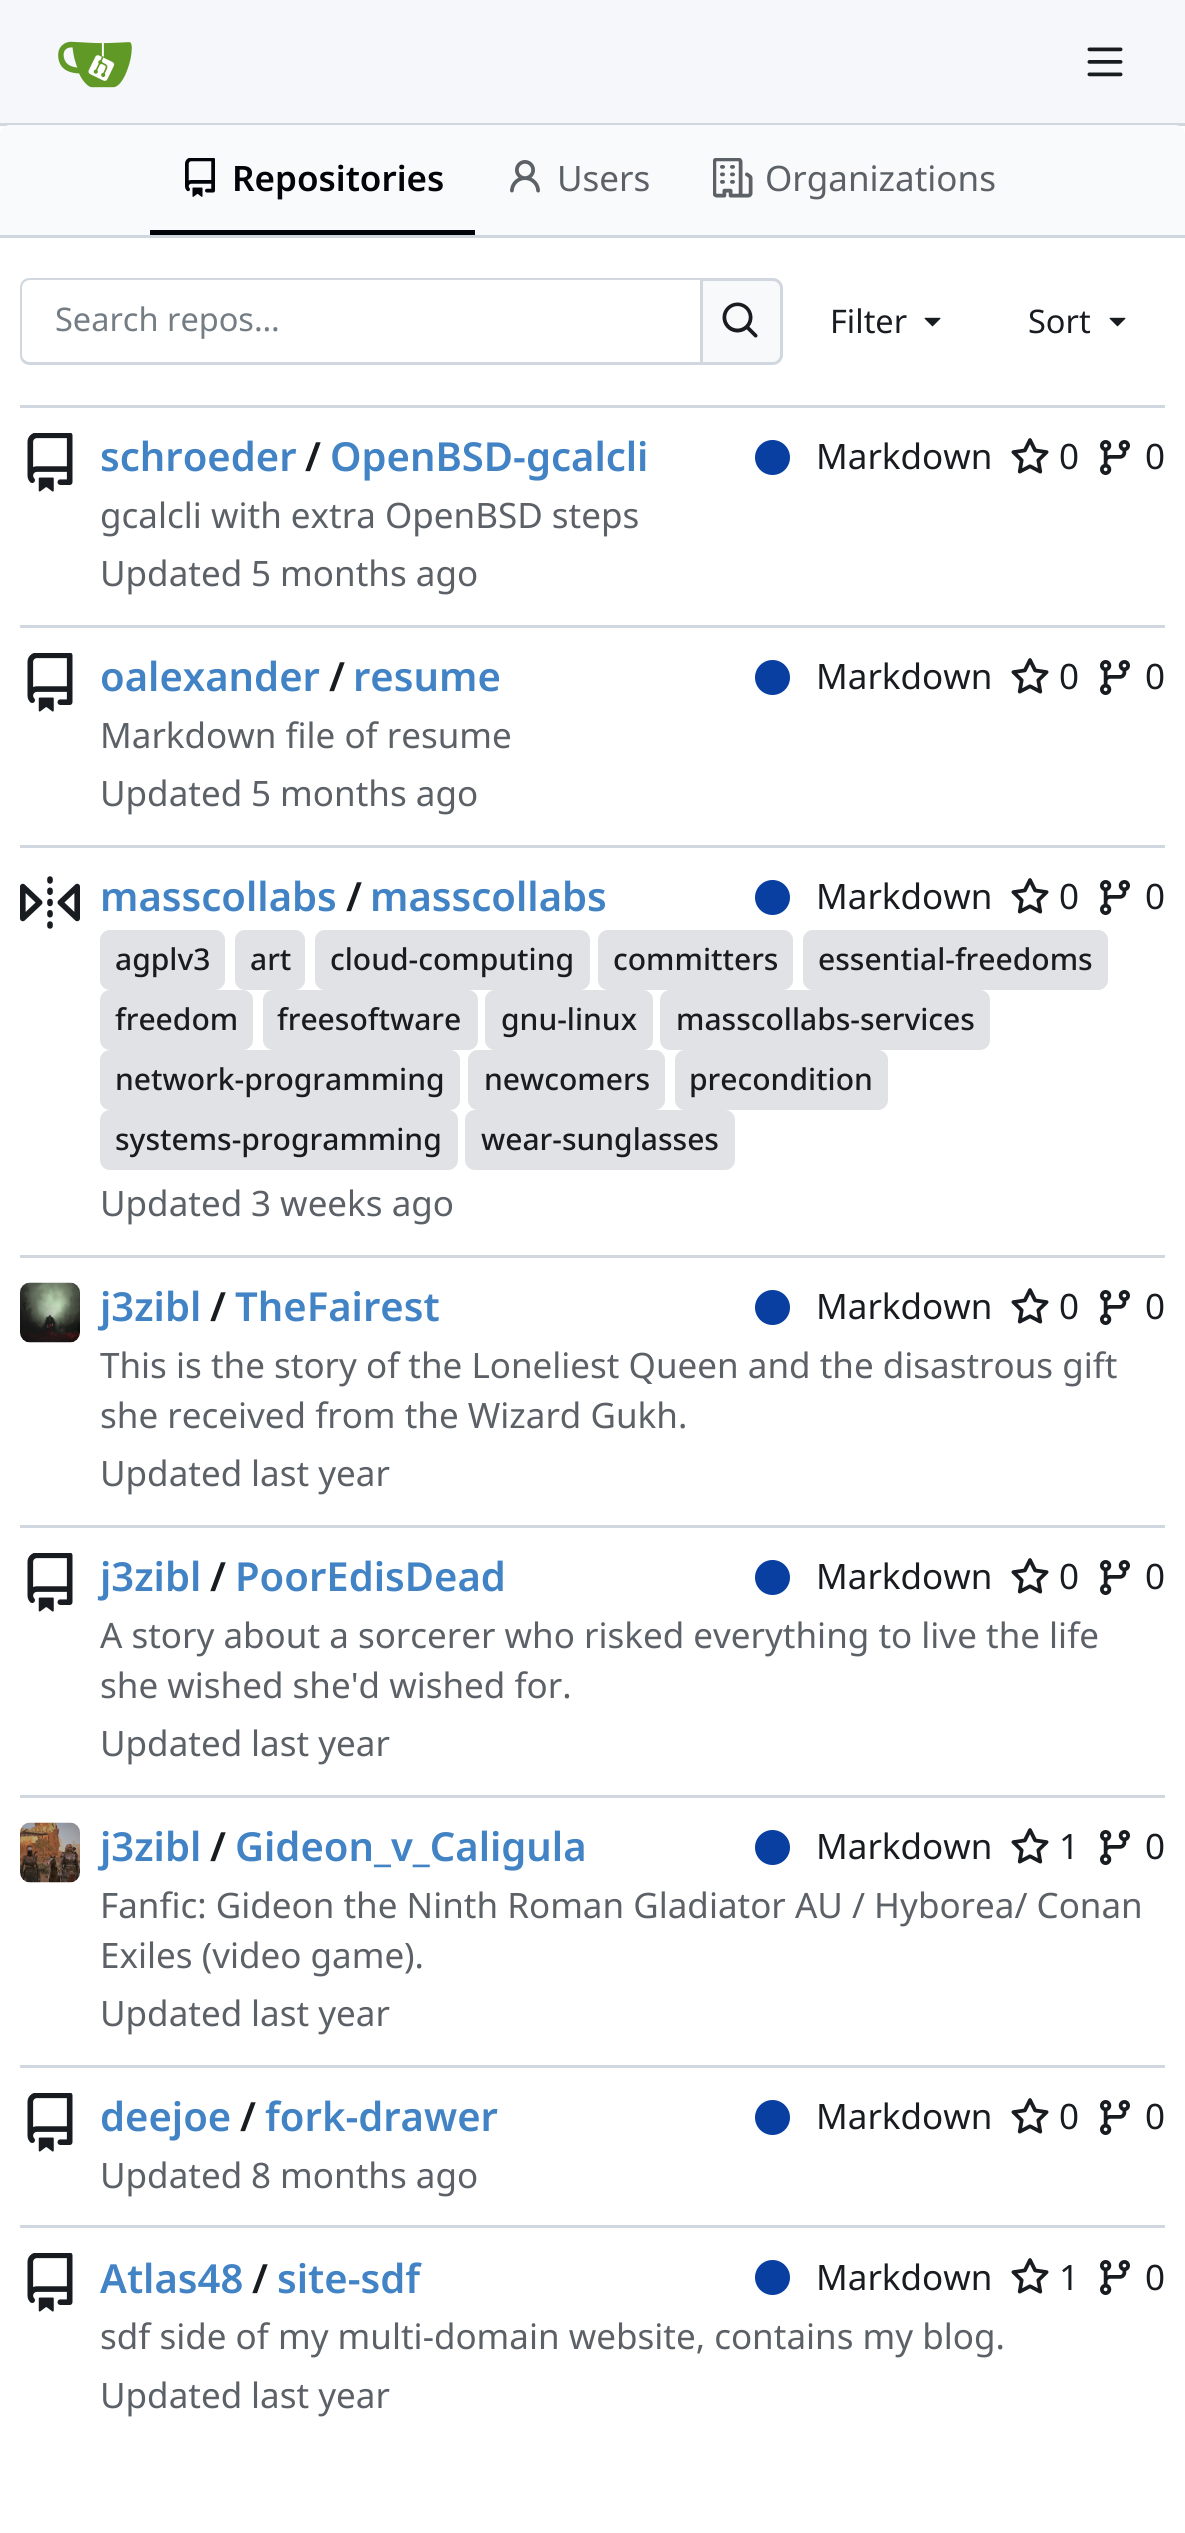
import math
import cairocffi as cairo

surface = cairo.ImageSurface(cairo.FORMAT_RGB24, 1185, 2533)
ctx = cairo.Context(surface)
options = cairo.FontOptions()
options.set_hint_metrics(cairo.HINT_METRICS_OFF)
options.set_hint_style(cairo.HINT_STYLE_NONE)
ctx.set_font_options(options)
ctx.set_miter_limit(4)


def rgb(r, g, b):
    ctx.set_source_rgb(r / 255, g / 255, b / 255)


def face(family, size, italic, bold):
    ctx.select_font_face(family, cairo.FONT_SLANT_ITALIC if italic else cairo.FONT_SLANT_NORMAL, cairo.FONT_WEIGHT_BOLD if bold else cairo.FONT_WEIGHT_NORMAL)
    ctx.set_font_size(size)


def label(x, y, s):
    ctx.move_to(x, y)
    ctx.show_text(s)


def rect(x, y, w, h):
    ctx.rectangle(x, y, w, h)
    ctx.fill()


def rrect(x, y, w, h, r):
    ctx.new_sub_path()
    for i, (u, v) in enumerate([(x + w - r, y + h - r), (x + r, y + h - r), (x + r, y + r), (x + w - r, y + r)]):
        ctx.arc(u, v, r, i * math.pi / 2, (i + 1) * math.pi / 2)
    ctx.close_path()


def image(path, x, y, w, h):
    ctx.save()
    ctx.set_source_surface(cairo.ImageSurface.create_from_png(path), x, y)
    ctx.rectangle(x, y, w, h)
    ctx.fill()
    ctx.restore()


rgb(255, 255, 255)
ctx.paint()
rgb(246, 247, 250)
rect(0, 0, 1185, 123)
rgb(208, 215, 222)
rect(0, 123, 1185, 3)
image('image0.png', 58, 41, 74, 47)
image('image1.png', 1087, 47, 36, 30)
rgb(249, 250, 251)
ctx.new_path()
ctx.move_to(10, 125)
ctx.line_to(1175, 125)
ctx.curve_to(1180.5, 125, 1185, 129.5, 1185, 135)
ctx.line_to(1185, 238)
ctx.line_to(0, 238)
ctx.line_to(0, 135)
ctx.curve_to(0, 129.5, 4.5, 125, 10, 125)
ctx.close_path()
ctx.fill()
rgb(208, 215, 222)
rect(0, 235, 1185, 3)
rgb(1, 5, 10)
rect(150, 230, 325, 5)
image('image2.png', 185, 158, 30, 39)
face('Noto Sans SemiBold', 35, 0, 0)
label(232, 191, 'Repositories')
image('image3.png', 510, 160, 30, 33)
face('Noto Sans', 35, 0, 0)
rgb(91, 97, 103)
label(557, 191, 'Users')
image('image4.png', 713, 158, 40, 40)
label(765, 191, 'Organizations')
rgb(208, 215, 222)
ctx.set_fill_rule(cairo.FILL_RULE_EVEN_ODD)
ctx.new_path()
ctx.move_to(30, 278)
ctx.line_to(700, 278)
ctx.line_to(700, 365)
ctx.line_to(30, 365)
ctx.curve_to(24, 365, 20, 361, 20, 355)
ctx.line_to(20, 288)
ctx.curve_to(20, 282, 24, 278, 30, 278)
ctx.close_path()
ctx.move_to(30, 280)
ctx.line_to(700, 280)
ctx.line_to(700, 362)
ctx.line_to(30, 362)
ctx.curve_to(26, 362, 22, 359, 22, 355)
ctx.line_to(22, 288)
ctx.curve_to(22, 283, 26, 280, 30, 280)
ctx.close_path()
ctx.fill()
face('Noto Sans', 32.5, 0, 0)
rgb(116, 124, 132)
label(55, 331, 'Search repos…')
rgb(248, 249, 251)
ctx.new_path()
ctx.move_to(701.5, 279.5)
ctx.line_to(773, 279.5)
ctx.curve_to(777.5, 279.5, 781.5, 283.5, 781.5, 288)
ctx.line_to(781.5, 355)
ctx.curve_to(781.5, 359.5, 777.5, 363.5, 773, 363.5)
ctx.line_to(701.5, 363.5)
ctx.close_path()
ctx.fill_preserve()
rgb(208, 215, 222)
ctx.set_line_width(3)
ctx.stroke()
image('image5.png', 722, 302, 36, 36)
rgb(24, 28, 33)
label(830, 333, 'Filter')
image('image6.png', 924, 317, 17, 10)
label(1028, 333, 'Sort')
image('image6.png', 1109, 317, 17, 10)
rgb(208, 215, 222)
rect(20, 405, 1145, 3)
image('image7.png', 27, 433, 46, 59)
face('Noto Sans SemiBold', 40, 0, 0)
rgb(65, 131, 196)
label(100, 471, 'schroeder')
rgb(24, 28, 33)
label(305, 471, '/')
rgb(65, 131, 196)
label(330, 471, 'OpenBSD-gcalcli')
rgb(8, 63, 161)
ctx.new_path()
ctx.arc(772.5, 457.5, 17.5, 0, 2 * math.pi)
ctx.fill()
face('Noto Sans', 35, 0, 0)
rgb(24, 28, 33)
label(816, 469, 'Markdown')
image('image8.png', 1011, 438, 38, 36)
label(1059, 469, '0')
image('image9.png', 1100, 440, 30, 35)
label(1145, 469, '0')
rgb(91, 97, 103)
label(100, 528, 'gcalcli with extra OpenBSD steps')
label(100, 586, 'Updated')
label(251, 586, '5 months ago')
rgb(208, 215, 222)
rect(20, 625, 1145, 3)
image('image7.png', 27, 653, 46, 59)
face('Noto Sans SemiBold', 40, 0, 0)
rgb(65, 131, 196)
label(100, 691, 'oalexander')
rgb(24, 28, 33)
label(329, 691, '/')
rgb(65, 131, 196)
label(353, 691, 'resume')
rgb(8, 63, 161)
ctx.new_path()
ctx.arc(772.5, 677.5, 17.5, 0, 2 * math.pi)
ctx.fill()
face('Noto Sans', 35, 0, 0)
rgb(24, 28, 33)
label(816, 689, 'Markdown')
image('image8.png', 1011, 658, 38, 36)
label(1059, 689, '0')
image('image9.png', 1100, 660, 30, 35)
label(1145, 689, '0')
rgb(91, 97, 103)
label(100, 748, 'Markdown file of resume')
label(100, 806, 'Updated')
label(251, 806, '5 months ago')
rgb(208, 215, 222)
rect(20, 845, 1145, 3)
image('image10.png', 20, 876, 60, 53)
face('Noto Sans SemiBold', 40, 0, 0)
rgb(65, 131, 196)
label(100, 911, 'masscollabs')
rgb(24, 28, 33)
label(346, 911, '/')
rgb(65, 131, 196)
label(370, 911, 'masscollabs')
rgb(8, 63, 161)
ctx.new_path()
ctx.arc(772.5, 897.5, 17.5, 0, 2 * math.pi)
ctx.fill()
face('Noto Sans', 35, 0, 0)
rgb(24, 28, 33)
label(816, 909, 'Markdown')
image('image8.png', 1011, 878, 38, 36)
label(1059, 909, '0')
image('image9.png', 1100, 880, 30, 35)
label(1145, 909, '0')
rgb(224, 226, 229)
rrect(100, 930, 125, 60, 10)
ctx.fill()
face('Noto Sans Medium', 30, 0, 0)
rgb(24, 28, 33)
label(115, 970, 'agplv3')
rgb(224, 226, 229)
rrect(235, 930, 70, 60, 10)
ctx.fill()
rgb(24, 28, 33)
label(250, 970, 'art')
rgb(224, 226, 229)
rrect(315, 930, 275, 60, 10)
ctx.fill()
rgb(24, 28, 33)
label(330, 970, 'cloud-computing')
rgb(224, 226, 229)
rrect(598, 930, 195, 60, 10)
ctx.fill()
rgb(24, 28, 33)
label(613, 970, 'committers')
rgb(224, 226, 229)
rrect(803, 930, 305, 60, 10)
ctx.fill()
rgb(24, 28, 33)
label(818, 970, 'essential-freedoms')
rgb(224, 226, 229)
rrect(100, 990, 153, 60, 10)
ctx.fill()
rgb(24, 28, 33)
label(115, 1030, 'freedom')
rgb(224, 226, 229)
rrect(263, 990, 215, 60, 10)
ctx.fill()
rgb(24, 28, 33)
label(277, 1030, 'freesoftware')
rgb(224, 226, 229)
rrect(485, 990, 168, 60, 10)
ctx.fill()
rgb(24, 28, 33)
label(501, 1030, 'gnu-linux')
rgb(224, 226, 229)
rrect(660, 990, 330, 60, 10)
ctx.fill()
rgb(24, 28, 33)
label(676, 1030, 'masscollabs-services')
rgb(224, 226, 229)
rrect(100, 1050, 360, 60, 10)
ctx.fill()
rgb(24, 28, 33)
label(115, 1090, 'network-programming')
rgb(224, 226, 229)
rrect(468, 1050, 197, 60, 10)
ctx.fill()
rgb(24, 28, 33)
label(484, 1090, 'newcomers')
rgb(224, 226, 229)
rrect(675, 1050, 213, 60, 10)
ctx.fill()
rgb(24, 28, 33)
label(689, 1090, 'precondition')
rgb(224, 226, 229)
rrect(100, 1110, 358, 60, 10)
ctx.fill()
rgb(24, 28, 33)
label(115, 1150, 'systems-programming')
rgb(224, 226, 229)
rrect(465, 1110, 270, 60, 10)
ctx.fill()
rgb(24, 28, 33)
label(481, 1150, 'wear-sunglasses')
face('Noto Sans', 35, 0, 0)
rgb(91, 97, 103)
label(100, 1216, 'Updated')
label(251, 1216, '3 weeks ago')
rgb(208, 215, 222)
rect(20, 1255, 1145, 3)
image('image11.png', 20, 1282, 60, 61)
face('Noto Sans SemiBold', 40, 0, 0)
rgb(65, 131, 196)
label(100, 1321, 'j3zibl')
rgb(24, 28, 33)
label(210, 1321, '/')
rgb(65, 131, 196)
label(235, 1321, 'TheFairest')
rgb(8, 63, 161)
ctx.new_path()
ctx.arc(772.5, 1307.5, 17.5, 0, 2 * math.pi)
ctx.fill()
face('Noto Sans', 35, 0, 0)
rgb(24, 28, 33)
label(816, 1319, 'Markdown')
image('image8.png', 1011, 1288, 38, 36)
label(1059, 1319, '0')
image('image9.png', 1100, 1290, 30, 35)
label(1145, 1319, '0')
rgb(91, 97, 103)
label(100, 1378, 'This is the story of the Loneliest Queen and the disastrous gift')
label(100, 1428, 'she received from the Wizard Gukh.')
label(100, 1486, 'Updated')
label(251, 1486, 'last year')
rgb(208, 215, 222)
rect(20, 1525, 1145, 3)
image('image7.png', 27, 1553, 46, 59)
face('Noto Sans SemiBold', 40, 0, 0)
rgb(65, 131, 196)
label(100, 1591, 'j3zibl')
rgb(24, 28, 33)
label(210, 1591, '/')
rgb(65, 131, 196)
label(235, 1591, 'PoorEdisDead')
rgb(8, 63, 161)
ctx.new_path()
ctx.arc(772.5, 1577.5, 17.5, 0, 2 * math.pi)
ctx.fill()
face('Noto Sans', 35, 0, 0)
rgb(24, 28, 33)
label(816, 1589, 'Markdown')
image('image8.png', 1011, 1558, 38, 36)
label(1059, 1589, '0')
image('image9.png', 1100, 1560, 30, 35)
label(1145, 1589, '0')
rgb(91, 97, 103)
label(100, 1648, 'A story about a sorcerer who risked everything to live the life')
label(100, 1698, 'she wished she\'d wished for.')
label(100, 1756, 'Updated')
label(251, 1756, 'last year')
rgb(208, 215, 222)
rect(20, 1795, 1145, 3)
image('image12.png', 20, 1822, 60, 61)
face('Noto Sans SemiBold', 40, 0, 0)
rgb(65, 131, 196)
label(100, 1861, 'j3zibl')
rgb(24, 28, 33)
label(210, 1861, '/')
rgb(65, 131, 196)
label(235, 1861, 'Gideon_v_Caligula')
rgb(8, 63, 161)
ctx.new_path()
ctx.arc(772.5, 1847.5, 17.5, 0, 2 * math.pi)
ctx.fill()
face('Noto Sans', 35, 0, 0)
rgb(24, 28, 33)
label(816, 1859, 'Markdown')
image('image8.png', 1011, 1828, 38, 36)
label(1059, 1859, '1')
image('image9.png', 1100, 1830, 30, 35)
label(1145, 1859, '0')
rgb(91, 97, 103)
label(100, 1918, 'Fanfic: Gideon the Ninth Roman Gladiator AU / Hyborea/ Conan')
label(100, 1968, 'Exiles (video game).')
label(100, 2026, 'Updated')
label(251, 2026, 'last year')
rgb(208, 215, 222)
rect(20, 2065, 1145, 3)
image('image7.png', 27, 2093, 46, 59)
face('Noto Sans SemiBold', 40, 0, 0)
rgb(65, 131, 196)
label(100, 2131, 'deejoe')
rgb(24, 28, 33)
label(240, 2131, '/')
rgb(65, 131, 196)
label(265, 2131, 'fork-drawer')
rgb(8, 63, 161)
ctx.new_path()
ctx.arc(772.5, 2117.5, 17.5, 0, 2 * math.pi)
ctx.fill()
face('Noto Sans', 35, 0, 0)
rgb(24, 28, 33)
label(816, 2129, 'Markdown')
image('image8.png', 1011, 2098, 38, 36)
label(1059, 2129, '0')
image('image9.png', 1100, 2100, 30, 35)
label(1145, 2129, '0')
rgb(91, 97, 103)
label(100, 2188, 'Updated')
label(251, 2188, '8 months ago')
rgb(208, 215, 222)
rect(20, 2225, 1145, 3)
image('image7.png', 27, 2253, 46, 59)
face('Noto Sans SemiBold', 40, 0, 0)
rgb(65, 131, 196)
label(100, 2293, 'Atlas48')
rgb(24, 28, 33)
label(252, 2293, '/')
rgb(65, 131, 196)
label(277, 2293, 'site-sdf')
rgb(8, 63, 161)
ctx.new_path()
ctx.arc(772.5, 2277.5, 17.5, 0, 2 * math.pi)
ctx.fill()
face('Noto Sans', 35, 0, 0)
rgb(24, 28, 33)
label(816, 2290, 'Markdown')
image('image8.png', 1011, 2258, 38, 36)
label(1059, 2290, '1')
image('image9.png', 1100, 2260, 30, 35)
label(1145, 2290, '0')
rgb(91, 97, 103)
label(100, 2349, 'sdf side of my multi-domain website, contains my blog.')
label(100, 2408, 'Updated')
label(251, 2408, 'last year')
surface.write_to_png('render.png')
